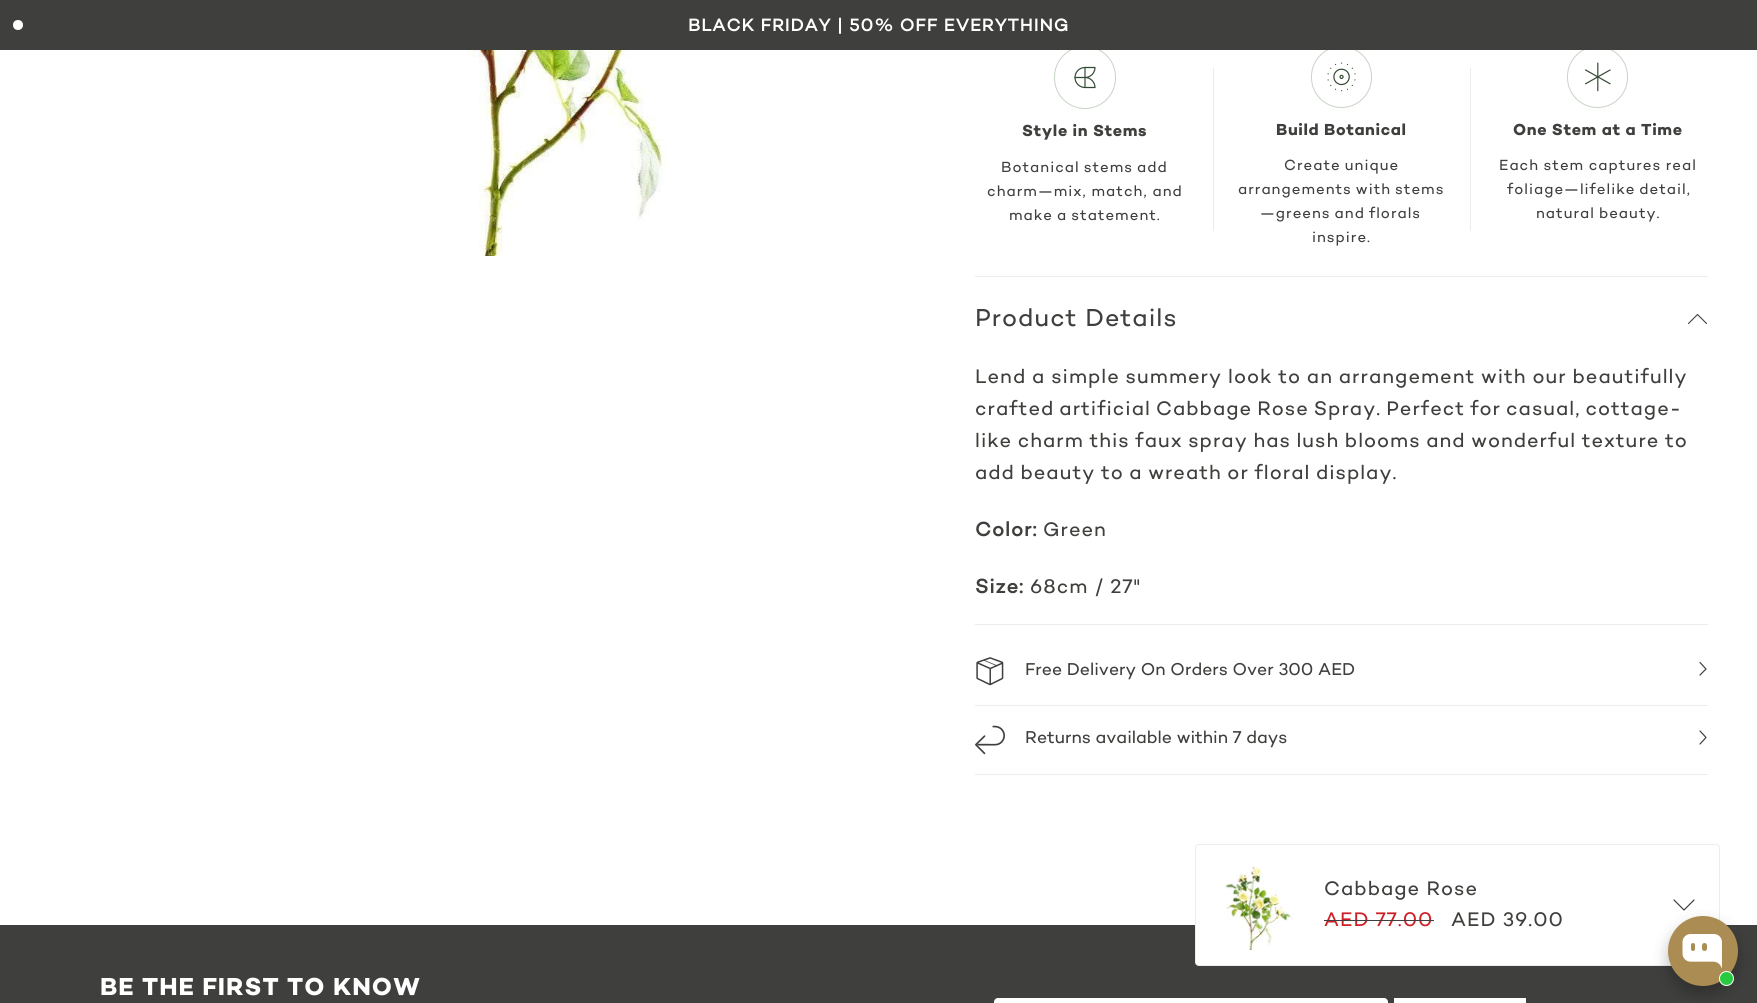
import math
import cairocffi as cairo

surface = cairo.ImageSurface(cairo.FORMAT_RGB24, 1757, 1003)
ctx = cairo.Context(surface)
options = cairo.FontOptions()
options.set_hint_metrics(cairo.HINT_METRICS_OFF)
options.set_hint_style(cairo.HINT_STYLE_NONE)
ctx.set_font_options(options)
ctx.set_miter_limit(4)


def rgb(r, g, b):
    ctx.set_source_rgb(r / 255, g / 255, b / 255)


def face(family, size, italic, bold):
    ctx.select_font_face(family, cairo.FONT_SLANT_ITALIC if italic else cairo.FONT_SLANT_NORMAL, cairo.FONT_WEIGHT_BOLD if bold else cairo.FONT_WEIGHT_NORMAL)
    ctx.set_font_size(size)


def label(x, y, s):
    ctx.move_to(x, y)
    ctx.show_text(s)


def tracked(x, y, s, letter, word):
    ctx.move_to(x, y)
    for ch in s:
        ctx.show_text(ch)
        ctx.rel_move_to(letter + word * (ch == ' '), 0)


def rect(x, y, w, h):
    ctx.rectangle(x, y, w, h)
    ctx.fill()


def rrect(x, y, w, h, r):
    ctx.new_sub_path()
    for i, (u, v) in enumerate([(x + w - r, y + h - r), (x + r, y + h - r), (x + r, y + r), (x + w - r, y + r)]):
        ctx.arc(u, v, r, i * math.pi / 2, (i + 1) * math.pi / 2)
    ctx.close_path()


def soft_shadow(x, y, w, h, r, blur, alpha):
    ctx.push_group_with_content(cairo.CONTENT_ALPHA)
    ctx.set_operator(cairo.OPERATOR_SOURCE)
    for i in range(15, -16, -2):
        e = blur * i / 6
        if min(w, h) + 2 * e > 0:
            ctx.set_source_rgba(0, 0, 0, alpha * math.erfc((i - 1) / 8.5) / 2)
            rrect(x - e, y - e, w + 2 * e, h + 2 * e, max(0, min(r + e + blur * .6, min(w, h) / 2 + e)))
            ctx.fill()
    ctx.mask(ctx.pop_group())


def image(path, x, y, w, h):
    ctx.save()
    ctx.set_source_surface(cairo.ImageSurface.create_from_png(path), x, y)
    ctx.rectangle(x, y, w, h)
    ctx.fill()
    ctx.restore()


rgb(255, 255, 255)
ctx.paint()
rgb(63, 63, 61)
rect(0, 0, 1757, 50)
rgb(255, 255, 255)
ctx.arc(18, 25, 5, 0, 2 * math.pi)
ctx.fill()
face('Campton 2', 17.5, 0, 1)
tracked(688, 31, 'BLACK FRIDAY | 50% OFF EVERYTHING', 1, 0)
image('image0.png', 444, 50, 348, 206)
image('image1.png', 1054, 50, 62, 59)
face('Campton', 16.25, 0, 1)
rgb(63, 63, 61)
tracked(1022, 136, 'Style in Stems', 0.6, 0)
face('Campton', 15, 0, 0)
tracked(1001, 172, 'Botanical stems add', 1, -1)
tracked(987, 196, 'charm—mix, match, and', 1, 0)
tracked(1009, 220, 'make a statement.', 1, -1)
rgb(236, 236, 236)
rect(1213, 68, 1, 163)
image('image2.png', 1311, 50, 61, 58)
face('Campton', 16.25, 0, 1)
rgb(63, 63, 61)
tracked(1276, 135, 'Build Botanical', 0.6, 0)
face('Campton', 15, 0, 0)
tracked(1284, 170, 'Create unique', 1, -1)
tracked(1238, 194, 'arrangements with stems', 1, -1)
tracked(1260, 218, '—greens and florals', 1, -1)
tracked(1312, 242, 'inspire.', 1, 0)
rgb(236, 236, 236)
rect(1470, 68, 1, 163)
image('image3.png', 1567, 50, 61, 58)
face('Campton', 16.25, 0, 1)
rgb(63, 63, 61)
tracked(1513, 135, 'One Stem at a Time', 0.6, 0)
face('Campton', 15, 0, 0)
tracked(1499, 170, 'Each stem captures real', 1, -0.5)
tracked(1507, 194, 'foliage—lifelike detail,', 1, -1)
tracked(1536, 218, 'natural beauty.', 1, -1)
rgb(236, 236, 236)
rect(975, 276, 733, 1)
rect(975, 624, 733, 1)
face('Campton', 25, 0, 0)
rgb(63, 63, 61)
tracked(975, 326, 'Product Details', 1, 0)
ctx.new_path()
ctx.move_to(1688.5, 323.5)
ctx.line_to(1697.5, 314.5)
ctx.line_to(1706.5, 323.5)
ctx.set_line_width(1.1)
ctx.set_line_cap(cairo.LINE_CAP_ROUND)
ctx.set_line_join(cairo.LINE_JOIN_ROUND)
ctx.stroke()
face('Campton', 20, 0, 0)
tracked(975, 383, 'Lend a simple summery look to an arrangement with our beautifully', 1, -0.5)
tracked(975, 415, 'crafted artificial Cabbage Rose Spray. Perfect for casual, cottage-', 1, -1.25)
tracked(975, 447, 'like charm this faux spray has lush blooms and wonderful texture to', 1, -0.75)
tracked(975, 479, 'add beauty to a wreath or floral display.', 1, -0.75)
face('Campton 2', 20, 0, 1)
tracked(975, 536, 'Color:', 1, 0)
face('Campton', 20, 0, 0)
tracked(1043, 536, 'Green', 1, 0)
face('Campton 2', 20, 0, 1)
tracked(975, 593, 'Size:', 1, 0)
face('Campton', 20, 0, 0)
tracked(1030, 593, '68cm / 27"', 1, 0)
image('image4.png', 976, 657, 28, 29)
face('Campton', 17.5, 0, 0)
label(1025, 675, 'Free Delivery On Orders Over 300 AED')
ctx.new_path()
ctx.move_to(1700, 662.5)
ctx.line_to(1706, 669)
ctx.line_to(1700, 675)
ctx.set_line_width(1.2)
ctx.stroke()
rgb(236, 236, 236)
rect(975, 705, 733, 1)
rect(975, 774, 733, 1)
image('image5.png', 975, 725, 30, 30)
rgb(63, 63, 61)
label(1025, 743, 'Returns available within 7 days')
ctx.new_path()
ctx.move_to(1700, 731)
ctx.line_to(1706, 737.5)
ctx.line_to(1700, 744)
ctx.stroke()
rect(0, 925, 1757, 78)
face('Campton', 25, 0, 1)
rgb(255, 255, 255)
tracked(100, 995, 'BE THE FIRST TO KNOW', 1, 0)
rrect(994, 998, 394, 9, 4)
ctx.fill()
rect(1394, 998, 132, 5)
rrect(1195, 844, 525, 122, 4)
ctx.fill()
rrect(1195.5, 844.5, 524, 121, 3.5)
ctx.set_source_rgba(0.247, 0.247, 0.239, 0.1)
ctx.set_line_width(1)
ctx.set_line_cap(cairo.LINE_CAP_BUTT)
ctx.set_line_join(cairo.LINE_JOIN_MITER)
ctx.stroke()
image('image6.png', 1225, 866, 69, 84)
face('Campton', 20, 0, 0)
rgb(63, 63, 61)
tracked(1324, 895, 'Cabbage Rose', 1, 0)
rgb(205, 32, 38)
tracked(1324, 926, 'AED 77.00', 1, 0)
rgb(63, 63, 61)
rect(1324, 920, 110, 1)
tracked(1451, 926, 'AED 39.00', 1, 0)
ctx.new_path()
ctx.move_to(1674, 900)
ctx.line_to(1684, 910)
ctx.line_to(1694, 900)
ctx.set_line_width(1.2)
ctx.set_line_cap(cairo.LINE_CAP_ROUND)
ctx.set_line_join(cairo.LINE_JOIN_ROUND)
ctx.stroke()
rgb(0, 0, 0)
soft_shadow(1668, 924, 70, 70, 35, 7.5, 0.25)
rgb(171, 140, 82)
ctx.arc(1703, 951, 35, 0, 2 * math.pi)
ctx.fill()
image('image7.png', 1682, 934, 40, 34)
rgb(39, 202, 64)
ctx.arc(1726.5, 978.5, 7, 0, 2 * math.pi)
ctx.fill_preserve()
rgb(255, 255, 255)
ctx.set_line_width(1)
ctx.set_line_cap(cairo.LINE_CAP_BUTT)
ctx.set_line_join(cairo.LINE_JOIN_MITER)
ctx.stroke()
surface.write_to_png('render.png')
